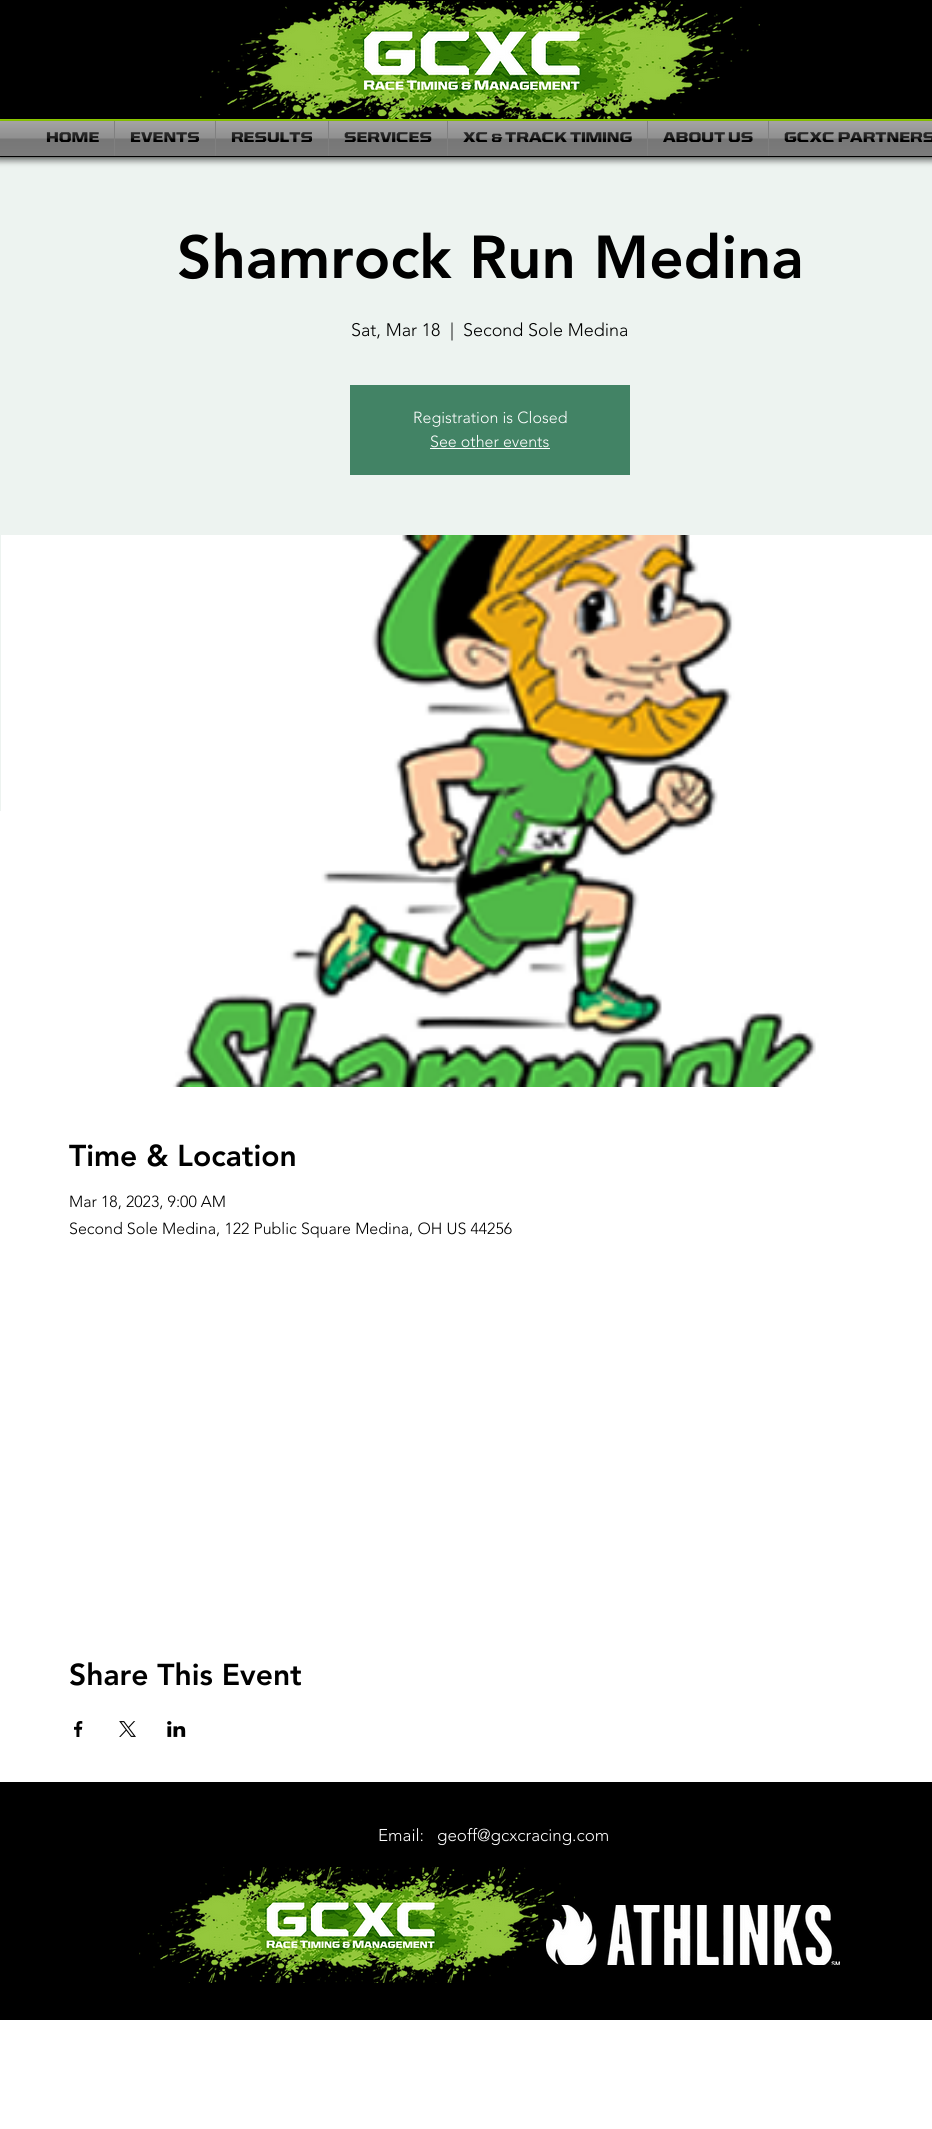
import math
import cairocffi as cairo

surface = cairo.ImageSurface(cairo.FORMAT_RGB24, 932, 2129)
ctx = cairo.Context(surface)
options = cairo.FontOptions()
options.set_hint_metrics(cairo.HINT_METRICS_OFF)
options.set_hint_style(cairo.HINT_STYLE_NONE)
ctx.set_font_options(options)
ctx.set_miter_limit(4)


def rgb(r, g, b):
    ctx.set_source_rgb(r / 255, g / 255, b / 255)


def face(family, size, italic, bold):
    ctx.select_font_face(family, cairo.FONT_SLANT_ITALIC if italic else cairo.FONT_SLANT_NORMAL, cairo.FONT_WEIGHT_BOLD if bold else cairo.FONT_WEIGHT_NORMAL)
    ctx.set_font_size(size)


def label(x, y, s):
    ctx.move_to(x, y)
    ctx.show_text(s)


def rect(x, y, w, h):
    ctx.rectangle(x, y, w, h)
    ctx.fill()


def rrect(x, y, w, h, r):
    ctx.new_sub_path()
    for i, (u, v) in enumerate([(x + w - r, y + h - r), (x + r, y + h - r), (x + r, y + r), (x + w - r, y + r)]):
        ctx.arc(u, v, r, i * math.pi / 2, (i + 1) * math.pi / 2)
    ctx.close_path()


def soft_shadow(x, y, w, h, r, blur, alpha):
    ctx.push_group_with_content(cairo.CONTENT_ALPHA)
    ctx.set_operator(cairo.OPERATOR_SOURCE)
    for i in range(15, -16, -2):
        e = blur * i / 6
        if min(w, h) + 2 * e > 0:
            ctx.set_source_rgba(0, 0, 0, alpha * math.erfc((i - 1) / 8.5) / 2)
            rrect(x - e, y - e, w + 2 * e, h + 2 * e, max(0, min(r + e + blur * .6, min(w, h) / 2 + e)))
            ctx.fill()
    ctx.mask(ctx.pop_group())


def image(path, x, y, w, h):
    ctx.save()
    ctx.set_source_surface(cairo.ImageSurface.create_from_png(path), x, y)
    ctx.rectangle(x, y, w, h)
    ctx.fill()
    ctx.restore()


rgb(255, 255, 255)
ctx.paint()
rgb(237, 243, 240)
rect(0, 157, 932, 654)
rgb(0, 0, 0)
soft_shadow(-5, -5, 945, 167, 0, 2.5, 0.35)
rgb(0, 0, 0)
rect(0, 0, 932, 157)
image('image0.png', 200, 1, 560, 118)
rgb(149, 214, 0)
rect(0, 119, 932, 2)
rgb(0, 0, 0)
soft_shadow(0, 122, 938, 35, 0, 2, 0.6)
rgb(128, 128, 128)
rect(0, 121, 932, 35)
image('image1.png', 0, 121, 31, 35)
face('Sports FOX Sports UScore', 12, 0, 0)
rgb(0, 0, 0)
label(46, 142, 'HOME')
image('image2.png', 31, 121, 83, 35)
label(130, 142, 'EVENTS')
image('image3.png', 115, 121, 100, 35)
label(231, 142, 'RESULTS')
image('image4.png', 216, 121, 112, 35)
label(344, 142, 'SERVICES')
image('image5.png', 329, 121, 118, 35)
label(463, 142, 'XC & TRACK TIMING')
image('image6.png', 448, 121, 199, 35)
label(663, 142, 'ABOUT US')
image('image7.png', 648, 121, 120, 35)
label(784, 142, 'GCXC PARTNERS')
image('image8.png', 769, 121, 163, 35)
face('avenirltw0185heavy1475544 Black', 60, 0, 0)
label(177, 278, 'Shamrock Run Medina')
face('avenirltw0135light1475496 Light', 18, 0, 0)
label(351, 336, 'Sat, Mar 18')
label(450, 336, '|')
label(463, 336, 'Second Sole Medina')
rgb(66, 131, 101)
rect(350, 385, 280, 90)
face('avenirltw0135light1475496 Light', 16, 0, 0)
rgb(255, 255, 255)
label(413, 423, 'Registration is Closed')
label(430, 447, 'See other events')
rect(430, 448, 120, 1)
image('image9.png', 1, 535, 931, 552)
face('avenirltw0185heavy1475544 Black', 30, 0, 0)
rgb(0, 0, 0)
label(69, 1166, 'Time & Location')
face('avenirltw0135light1475496 Light', 16, 0, 0)
label(69, 1207, 'Mar 18, 2023, 9:00 AM')
label(69, 1234, 'Second Sole Medina, 122 Public Square Medina, OH US 44256')
face('avenirltw0185heavy1475544 Black', 30, 0, 0)
label(69, 1685, 'Share This Event')
image('image10.png', 74, 1721, 9, 16)
image('image11.png', 119, 1721, 17, 16)
image('image12.png', 167, 1721, 19, 16)
rect(0, 1782, 932, 238)
face('avenirltw0135light1475496 Light', 17, 0, 0)
rgb(255, 255, 255)
label(378, 1841, 'Email:')
label(437, 1841, 'geoff@gcxcracing.com')
image('image13.png', 139, 1867, 436, 116)
image('image14.png', 546, 1905, 294, 60)
surface.write_to_png('render.png')
